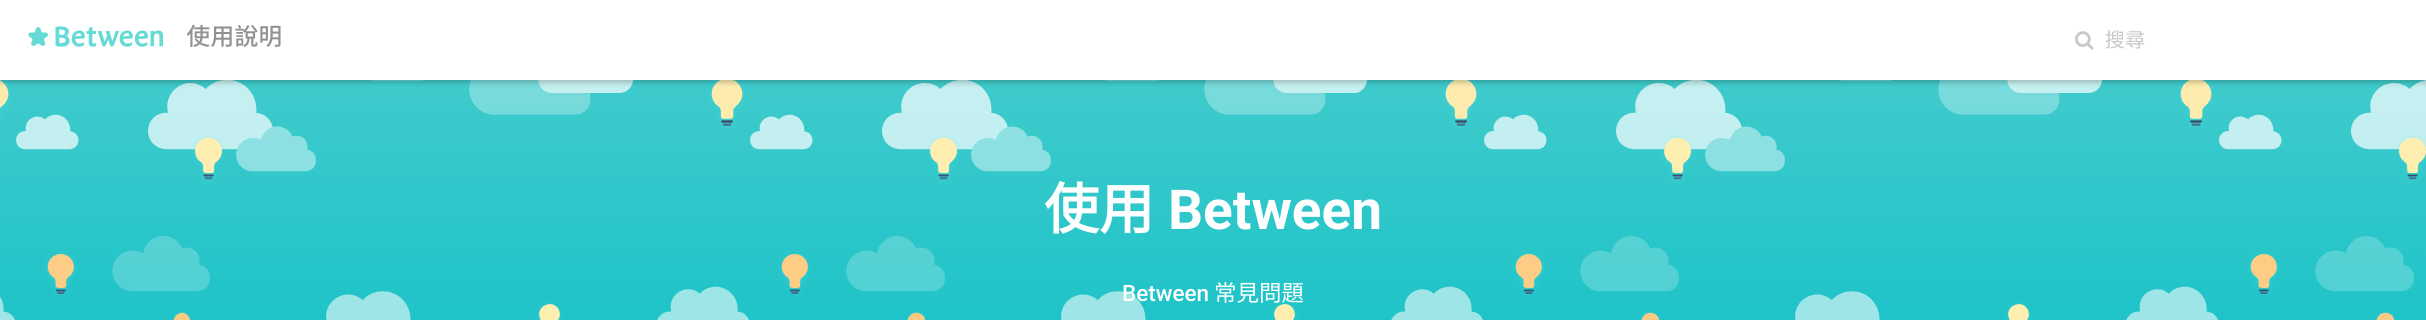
import math
import cairocffi as cairo

surface = cairo.ImageSurface(cairo.FORMAT_RGB24, 2426, 320)
ctx = cairo.Context(surface)
options = cairo.FontOptions()
options.set_hint_metrics(cairo.HINT_METRICS_OFF)
options.set_hint_style(cairo.HINT_STYLE_NONE)
ctx.set_font_options(options)
ctx.set_miter_limit(4)


def rgb(r, g, b):
    ctx.set_source_rgb(r / 255, g / 255, b / 255)


def face(family, size, italic, bold):
    ctx.select_font_face(family, cairo.FONT_SLANT_ITALIC if italic else cairo.FONT_SLANT_NORMAL, cairo.FONT_WEIGHT_BOLD if bold else cairo.FONT_WEIGHT_NORMAL)
    ctx.set_font_size(size)


def label(x, y, s):
    ctx.move_to(x, y)
    ctx.show_text(s)


def rect(x, y, w, h):
    ctx.rectangle(x, y, w, h)
    ctx.fill()


def rrect(x, y, w, h, r):
    ctx.new_sub_path()
    for i, (u, v) in enumerate([(x + w - r, y + h - r), (x + r, y + h - r), (x + r, y + r), (x + w - r, y + r)]):
        ctx.arc(u, v, r, i * math.pi / 2, (i + 1) * math.pi / 2)
    ctx.close_path()


def soft_shadow(x, y, w, h, r, blur, alpha):
    ctx.push_group_with_content(cairo.CONTENT_ALPHA)
    ctx.set_operator(cairo.OPERATOR_SOURCE)
    for i in range(15, -16, -2):
        e = blur * i / 6
        if min(w, h) + 2 * e > 0:
            ctx.set_source_rgba(0, 0, 0, alpha * math.erfc((i - 1) / 8.5) / 2)
            rrect(x - e, y - e, w + 2 * e, h + 2 * e, max(0, min(r + e + blur * .6, min(w, h) / 2 + e)))
            ctx.fill()
    ctx.mask(ctx.pop_group())


def image(path, x, y, w, h):
    ctx.save()
    ctx.set_source_surface(cairo.ImageSurface.create_from_png(path), x, y)
    ctx.rectangle(x, y, w, h)
    ctx.fill()
    ctx.restore()


rgb(255, 255, 255)
ctx.paint()
image('image3.png', 0, 80, 2426, 240)
rgb(0, 0, 0)
soft_shadow(0, 3, 2426, 80, 0, 2.5, 0.2)
rgb(255, 255, 255)
rect(0, 0, 2426, 80)
image('image0.png', 28, 26, 135, 21)
image('image1.png', 187, 24, 94, 23)
image('image2.png', 2075, 31, 19, 19)
face('Noto Sans CJK TC', 20, 0, 0)
rgb(200, 200, 200)
label(2105, 47, '搜尋')
face('Noto Sans CJK TC', 55, 0, 1)
rgb(255, 255, 255)
label(1044, 229, '使用')
face('Roboto', 55, 0, 1)
label(1168, 229, 'Between')
face('Roboto Medium', 22.5, 0, 0)
label(1122, 301, 'Between')
face('Noto Sans CJK TC', 22.5, 0, 0)
label(1214, 301, '常見問題')
surface.write_to_png('render.png')
